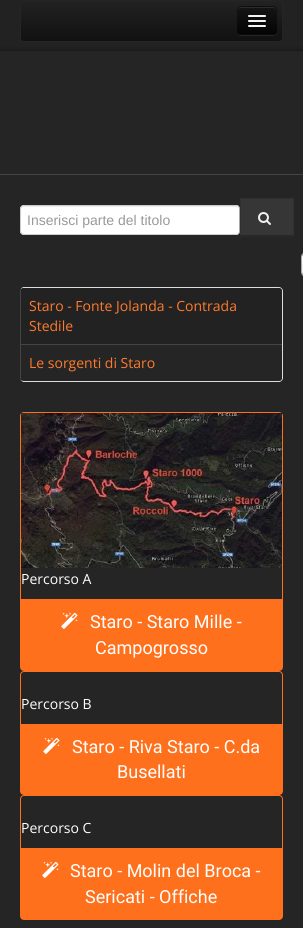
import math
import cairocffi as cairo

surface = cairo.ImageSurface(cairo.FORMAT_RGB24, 303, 928)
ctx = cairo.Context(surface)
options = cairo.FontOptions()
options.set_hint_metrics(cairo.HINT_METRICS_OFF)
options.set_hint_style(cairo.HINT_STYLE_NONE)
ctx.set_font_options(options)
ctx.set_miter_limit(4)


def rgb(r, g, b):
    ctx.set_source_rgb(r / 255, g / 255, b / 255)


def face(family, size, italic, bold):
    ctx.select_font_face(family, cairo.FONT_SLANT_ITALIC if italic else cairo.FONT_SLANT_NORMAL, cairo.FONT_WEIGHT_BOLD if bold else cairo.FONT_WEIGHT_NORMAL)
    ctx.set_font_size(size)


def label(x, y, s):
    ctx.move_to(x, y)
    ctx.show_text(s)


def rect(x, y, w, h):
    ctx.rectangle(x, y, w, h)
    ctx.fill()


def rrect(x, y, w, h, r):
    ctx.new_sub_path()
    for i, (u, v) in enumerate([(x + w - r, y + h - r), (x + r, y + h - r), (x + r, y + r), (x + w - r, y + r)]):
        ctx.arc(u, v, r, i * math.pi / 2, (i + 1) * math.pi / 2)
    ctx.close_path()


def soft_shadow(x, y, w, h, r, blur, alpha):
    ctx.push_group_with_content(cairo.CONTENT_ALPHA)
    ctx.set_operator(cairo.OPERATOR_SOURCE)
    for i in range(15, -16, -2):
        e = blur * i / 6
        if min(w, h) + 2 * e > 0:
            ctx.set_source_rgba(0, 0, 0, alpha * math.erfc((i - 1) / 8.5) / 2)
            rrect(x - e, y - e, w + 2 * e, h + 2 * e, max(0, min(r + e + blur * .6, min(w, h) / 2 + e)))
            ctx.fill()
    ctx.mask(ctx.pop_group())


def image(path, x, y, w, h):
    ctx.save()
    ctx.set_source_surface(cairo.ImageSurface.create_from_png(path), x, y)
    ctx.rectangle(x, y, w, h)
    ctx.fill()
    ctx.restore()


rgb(34, 34, 34)
ctx.paint()
ctx.save()
rrect(20, 0, 263, 42, 4)
ctx.clip()
gradient = cairo.LinearGradient(152, 1, 152, 41)
gradient.add_color_stop_rgba(0, 0.133, 0.133, 0.133, 1)
gradient.add_color_stop_rgba(1, 0.067, 0.067, 0.067, 1)
ctx.set_source(gradient)
rect(20, 1, 263, 40)
ctx.restore()
rrect(20.5, 0.5, 262, 41, 3.5)
rgb(37, 37, 37)
ctx.set_line_width(1)
ctx.stroke()
ctx.new_path()
ctx.move_to(237, 31)
ctx.curve_to(237, 37, 242, 36, 246, 36)
ctx.line_to(268, 36)
ctx.curve_to(272, 36, 277, 37, 277, 31)
ctx.curve_to(277, 33, 275, 35, 273, 35)
ctx.line_to(241, 35)
ctx.curve_to(239, 35, 237, 33, 237, 31)
ctx.close_path()
ctx.fill()
rgb(14, 14, 14)
rrect(237, 6, 40, 29, 4)
ctx.fill()
ctx.save()
rrect(237, 6, 40, 29, 4)
ctx.clip()
gradient = cairo.LinearGradient(257, 7, 257, 34)
gradient.add_color_stop_rgba(0, 0.082, 0.082, 0.082, 1)
gradient.add_color_stop_rgba(1, 0.016, 0.016, 0.016, 1)
ctx.set_source(gradient)
rect(237, 7, 40, 27)
ctx.restore()
rgb(44, 44, 44)
ctx.new_path()
ctx.move_to(241, 8)
ctx.line_to(273, 8)
ctx.curve_to(275, 8, 276, 9, 276, 11)
ctx.curve_to(276, 6, 272, 7, 267.5, 7)
ctx.line_to(246.5, 7)
ctx.curve_to(242, 7, 238, 6, 238, 11)
ctx.curve_to(238, 9, 239, 8, 241, 8)
ctx.close_path()
ctx.fill()
ctx.new_path()
ctx.move_to(275.5, 33.5)
ctx.curve_to(275, 34, 274, 34.5, 273, 34.5)
ctx.line_to(241, 34.5)
ctx.curve_to(240, 34.5, 239, 34, 238.5, 33.5)
ctx.set_source_rgba(0, 0, 0, 0.25)
ctx.stroke()
rgb(11, 11, 11)
ctx.new_path()
ctx.move_to(248, 16.5)
ctx.curve_to(247, 18.5, 251.5, 18, 251.5, 18)
ctx.line_to(262.5, 18)
ctx.curve_to(262.5, 18, 267, 18.5, 266, 16.5)
ctx.curve_to(265, 17.5, 258.5, 17, 257, 17)
ctx.curve_to(255.5, 17, 249, 17.5, 248, 16.5)
ctx.close_path()
ctx.fill()
rgb(245, 245, 245)
rrect(248, 15, 18, 2, 1)
ctx.fill()
rgb(8, 8, 8)
ctx.new_path()
ctx.move_to(248, 21.5)
ctx.curve_to(247, 23.5, 251.5, 23, 251.5, 23)
ctx.line_to(262.5, 23)
ctx.curve_to(262.5, 23, 267, 23.5, 266, 21.5)
ctx.curve_to(265, 22.5, 258.5, 22, 257, 22)
ctx.curve_to(255.5, 22, 249, 22.5, 248, 21.5)
ctx.close_path()
ctx.fill()
rgb(245, 245, 245)
rrect(248, 20, 18, 2, 1)
ctx.fill()
rrect(248, 25, 18, 2, 1)
ctx.fill()
rgb(0, 0, 0)
soft_shadow(0, 51, 303, 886, 0, 3, 0.47)
rgb(37, 37, 37)
rect(0, 51, 303, 877)
rgb(68, 68, 68)
rect(0, 174, 303, 1)
rgb(255, 255, 255)
rrect(20, 205, 220, 30, 4)
ctx.fill()
rgb(236, 236, 236)
ctx.new_path()
ctx.move_to(24, 207)
ctx.line_to(236, 207)
ctx.curve_to(238, 207, 239, 208, 239, 210)
ctx.line_to(239, 209)
ctx.curve_to(239, 207, 238, 206, 236, 206)
ctx.line_to(24, 206)
ctx.curve_to(22, 206, 21, 207, 21, 209)
ctx.line_to(21, 210)
ctx.curve_to(21, 208, 22, 207, 24, 207)
ctx.close_path()
ctx.fill()
rrect(20.5, 205.5, 219, 29, 3.5)
rgb(204, 204, 204)
ctx.stroke()
face('Liberation Sans', 14, 0, 0)
rgb(153, 153, 153)
label(27, 225, 'Inserisci parte del titolo')
rgb(40, 40, 40)
soft_shadow(240, 199, 54, 38, 0, 0.5, 0.9)
rgb(54, 54, 54)
rect(240, 198, 54, 38)
rgb(49, 49, 49)
ctx.new_path()
ctx.move_to(240, 198)
ctx.line_to(294, 198)
ctx.line_to(293, 199)
ctx.line_to(241, 199)
ctx.close_path()
ctx.fill()
ctx.new_path()
ctx.move_to(294, 198)
ctx.line_to(294, 236)
ctx.line_to(293, 235)
ctx.line_to(293, 199)
ctx.close_path()
ctx.fill()
ctx.set_source_rgba(0, 0, 0, 0.25)
ctx.new_path()
ctx.move_to(294, 236)
ctx.line_to(240, 236)
ctx.line_to(241, 235)
ctx.line_to(293, 235)
ctx.close_path()
ctx.fill()
ctx.set_source_rgba(0, 0, 0, 0.1)
ctx.new_path()
ctx.move_to(240, 236)
ctx.line_to(240, 198)
ctx.line_to(241, 199)
ctx.line_to(241, 235)
ctx.close_path()
ctx.fill()
image('image0.png', 258, 212, 13, 13)
gradient = cairo.LinearGradient(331, 253, 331, 276)
gradient.add_color_stop_rgba(0.2, 1, 1, 1, 1)
gradient.add_color_stop_rgba(0.5, 0.965, 0.965, 0.965, 1)
gradient.add_color_stop_rgba(0.52, 0.933, 0.933, 0.933, 1)
gradient.add_color_stop_rgba(1, 0.957, 0.957, 0.957, 1)
ctx.set_source(gradient)
rrect(302, 253, 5, 23, 4)
ctx.fill()
rrect(301.5, 252.5, 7, 24, 4.5)
rgb(170, 170, 170)
ctx.stroke()
rgb(221, 221, 221)
ctx.set_fill_rule(cairo.FILL_RULE_EVEN_ODD)
ctx.new_path()
ctx.move_to(24, 287)
ctx.line_to(279, 287)
ctx.curve_to(281, 287, 283, 289, 283, 291)
ctx.line_to(283, 378)
ctx.curve_to(283, 380, 281, 382, 279, 382)
ctx.line_to(24, 382)
ctx.curve_to(22, 382, 20, 380, 20, 378)
ctx.line_to(20, 291)
ctx.curve_to(20, 289, 22, 287, 24, 287)
ctx.close_path()
ctx.move_to(24, 288)
ctx.line_to(279, 288)
ctx.curve_to(281, 288, 282, 289, 282, 291)
ctx.line_to(282, 378)
ctx.curve_to(282, 380, 281, 381, 279, 381)
ctx.line_to(24, 381)
ctx.curve_to(22, 381, 20, 380, 20, 378)
ctx.line_to(20, 291)
ctx.curve_to(20, 289, 22, 288, 24, 288)
ctx.close_path()
ctx.fill()
rgb(34, 34, 34)
ctx.new_path()
ctx.move_to(24, 288)
ctx.line_to(278, 288)
ctx.curve_to(280, 288, 282, 290, 282, 292)
ctx.line_to(282, 344)
ctx.line_to(20, 344)
ctx.line_to(20, 292)
ctx.curve_to(20, 290, 22, 288, 24, 288)
ctx.close_path()
ctx.fill()
rgb(68, 68, 68)
rect(20, 290, 1, 54)
face('Open Sans', 14, 0, 0)
rgb(255, 123, 45)
label(29, 311, 'Staro - Fonte Jolanda - Contrada')
label(29, 331, 'Stedile')
rgb(68, 68, 68)
rect(20, 344, 262, 1)
rect(20, 344, 1, 35)
rgb(255, 123, 45)
label(29, 368, 'Le sorgenti di Staro')
rrect(20.5, 412.5, 262, 258, 3.5)
rgb(255, 112, 28)
ctx.stroke()
image('image1.png', 21, 413, 261, 155)
rgb(255, 255, 255)
label(21, 584, 'Percorso A')
rgb(255, 112, 28)
rect(21, 599, 261, 71)
image('image2.png', 61, 612, 17, 17)
face('Roboto', 18, 0, 0)
rgb(255, 255, 255)
label(90, 628, 'Staro - Staro Mille -')
label(95, 654, 'Campogrosso')
rrect(20.5, 671.5, 262, 123, 3.5)
rgb(255, 112, 28)
ctx.stroke()
face('Open Sans', 14, 0, 0)
rgb(255, 255, 255)
label(21, 709, 'Percorso B')
rgb(255, 112, 28)
rect(21, 724, 261, 70)
image('image2.png', 43, 737, 17, 17)
face('Roboto', 18, 0, 0)
rgb(255, 255, 255)
label(72, 753, 'Staro - Riva Staro - C.da')
label(117, 778, 'Busellati')
rrect(20.5, 795.5, 262, 124, 3.5)
rgb(255, 112, 28)
ctx.stroke()
face('Open Sans', 14, 0, 0)
rgb(255, 255, 255)
label(21, 833, 'Percorso C')
rgb(255, 112, 28)
rect(21, 848, 261, 71)
image('image2.png', 42, 861, 17, 17)
face('Roboto', 18, 0, 0)
rgb(255, 255, 255)
label(70, 877, 'Staro - Molin del Broca -')
label(85, 903, 'Sericati - Offiche')
surface.write_to_png('render.png')
